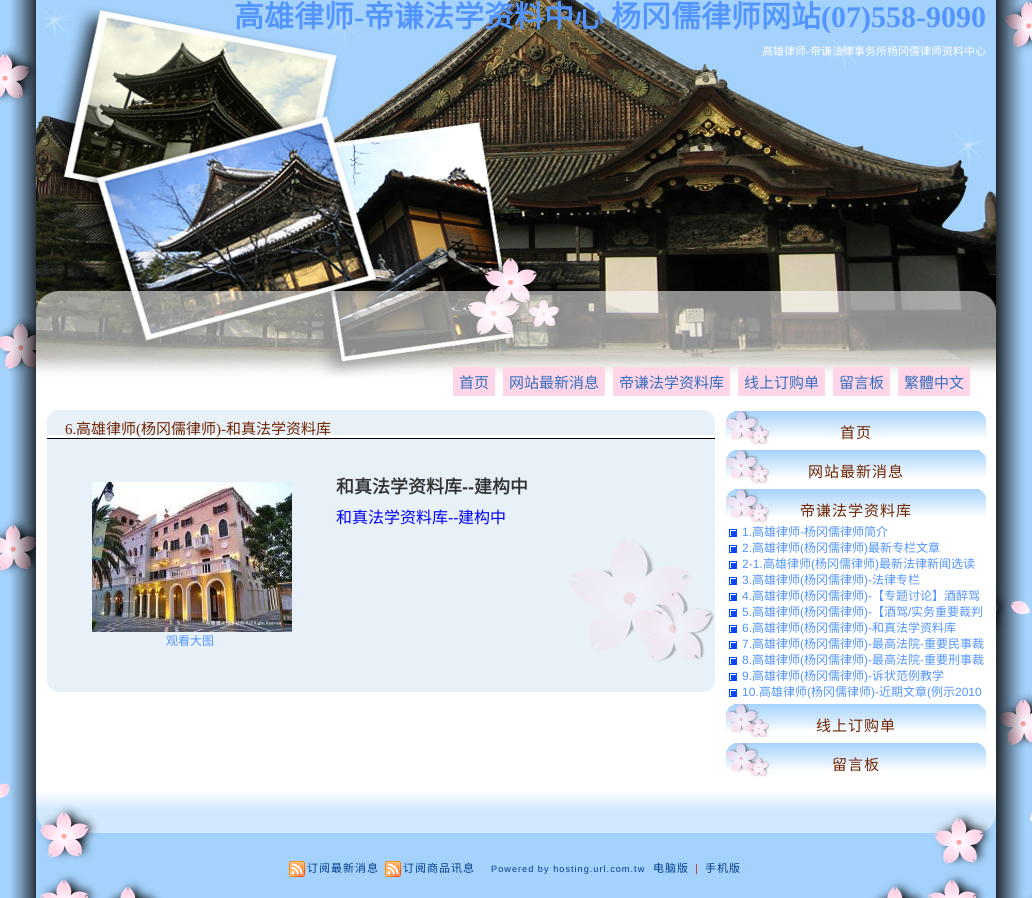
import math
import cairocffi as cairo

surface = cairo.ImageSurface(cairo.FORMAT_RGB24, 1032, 898)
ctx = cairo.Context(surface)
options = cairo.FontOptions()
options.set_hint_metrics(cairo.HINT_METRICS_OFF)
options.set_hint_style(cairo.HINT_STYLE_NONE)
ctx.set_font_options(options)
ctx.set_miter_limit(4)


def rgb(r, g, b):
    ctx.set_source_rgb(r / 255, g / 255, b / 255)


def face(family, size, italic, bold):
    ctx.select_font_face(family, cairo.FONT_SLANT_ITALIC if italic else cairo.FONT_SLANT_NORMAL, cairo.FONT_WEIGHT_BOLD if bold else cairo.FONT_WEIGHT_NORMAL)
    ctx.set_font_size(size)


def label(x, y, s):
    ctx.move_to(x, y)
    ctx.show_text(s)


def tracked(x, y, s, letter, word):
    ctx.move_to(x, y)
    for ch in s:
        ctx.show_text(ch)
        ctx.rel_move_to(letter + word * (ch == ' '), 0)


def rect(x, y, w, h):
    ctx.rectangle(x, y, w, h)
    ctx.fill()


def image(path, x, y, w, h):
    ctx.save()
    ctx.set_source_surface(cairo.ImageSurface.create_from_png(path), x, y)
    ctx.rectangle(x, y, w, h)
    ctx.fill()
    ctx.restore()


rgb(255, 255, 255)
ctx.paint()
image('image0.png', 0, 0, 1032, 898)
rgb(255, 255, 255)
rect(36, 378, 3, 413)
image('image1.png', 36, 0, 960, 378)
face('Noto Sans CJK SC', 30, 0, 1)
rgb(82, 149, 255)
label(234, 27, '高雄律师')
face('Liberation Serif', 30, 0, 1)
label(354, 27, '-')
face('Noto Sans CJK SC', 30, 0, 1)
label(364, 27, '帝谦法学资料中心')
label(611, 27, '杨冈儒律师网站')
face('Liberation Serif', 30, 0, 1)
label(821, 27, '(07)558-9090')
face('Noto Sans CJK SC', 11, 0, 0)
rgb(255, 255, 255)
label(762, 55, '高雄律师')
face('Liberation Serif', 11, 0, 0)
label(806, 55, '-')
face('Noto Sans CJK SC', 11, 0, 0)
label(810, 55, '帝谦法律事务所杨冈儒律师资料中心')
rgb(255, 214, 232)
rect(453, 367, 42, 29)
face('Noto Sans CJK SC', 15, 0, 0)
rgb(52, 109, 190)
label(459, 388, '首页')
rgb(255, 214, 232)
rect(503, 367, 102, 29)
rgb(52, 109, 190)
label(509, 388, '网站最新消息')
rgb(255, 214, 232)
rect(613, 367, 117, 29)
rgb(52, 109, 190)
label(619, 388, '帝谦法学资料库')
rgb(255, 214, 232)
rect(738, 367, 87, 29)
rgb(52, 109, 190)
label(744, 388, '线上订购单')
rgb(255, 214, 232)
rect(833, 367, 57, 29)
rgb(52, 109, 190)
label(839, 388, '留言板')
rgb(255, 214, 232)
rect(898, 367, 72, 29)
rgb(52, 109, 190)
label(904, 388, '繁體中文')
image('image2.png', 47, 410, 668, 25)
rgb(0, 0, 0)
rect(47, 438, 668, 1)
face('Liberation Serif', 15, 0, 0)
rgb(114, 37, 0)
label(65, 434, '6.')
face('Noto Sans CJK SC', 15, 0, 0)
label(76, 434, '高雄律师')
face('Liberation Serif', 15, 0, 0)
label(136, 434, '(')
face('Noto Sans CJK SC', 15, 0, 0)
label(141, 434, '杨冈儒律师')
face('Liberation Serif', 15, 0, 0)
label(216, 434, ')-')
face('Noto Sans CJK SC', 15, 0, 0)
label(226, 434, '和真法学资料库')
rgb(232, 240, 248)
rect(47, 439, 668, 228)
image('image3.png', 568, 537, 146, 125)
face('Noto Sans CJK SC', 18, 0, 1)
rgb(51, 51, 51)
label(336, 493, '和真法学资料库')
face('Liberation Sans', 18, 0, 1)
label(462, 493, '--')
face('Noto Sans CJK SC', 18, 0, 1)
label(474, 493, '建构中')
face('Noto Sans CJK SC', 16, 0, 0)
rgb(0, 0, 255)
label(336, 523, '和真法学资料库')
face('Liberation Sans', 16, 0, 0)
label(448, 523, '--')
face('Noto Sans CJK SC', 16, 0, 0)
label(458, 523, '建构中')
image('image4.png', 92, 482, 200, 150)
face('Noto Sans CJK SC', 12, 0, 0)
rgb(82, 149, 255)
label(166, 645, '观看大图')
image('image5.png', 47, 667, 668, 25)
image('image6.png', 726, 411, 260, 34)
face('Noto Sans CJK SC', 15, 0, 0)
rgb(114, 37, 0)
tracked(840, 438, '首页', 1, 0)
image('image6.png', 726, 450, 260, 34)
tracked(808, 477, '网站最新消息', 1, 0)
image('image6.png', 726, 489, 260, 34)
tracked(800, 516, '帝谦法学资料库', 1, 0)
image('image7.png', 729, 529, 8, 8)
face('Liberation Sans', 12, 0, 0)
rgb(82, 149, 255)
label(742, 536, '1.')
face('Noto Sans CJK SC', 12, 0, 0)
label(752, 536, '高雄律师')
face('Liberation Sans', 12, 0, 0)
label(800, 536, '-')
face('Noto Sans CJK SC', 12, 0, 0)
label(804, 536, '杨冈儒律师简介')
image('image7.png', 729, 545, 8, 8)
face('Liberation Sans', 12, 0, 0)
label(742, 552, '2.')
face('Noto Sans CJK SC', 12, 0, 0)
label(752, 552, '高雄律师')
face('Liberation Sans', 12, 0, 0)
label(800, 552, '(')
face('Noto Sans CJK SC', 12, 0, 0)
label(804, 552, '杨冈儒律师')
face('Liberation Sans', 12, 0, 0)
label(864, 552, ')')
face('Noto Sans CJK SC', 12, 0, 0)
label(868, 552, '最新专栏文章')
image('image7.png', 729, 561, 8, 8)
face('Liberation Sans', 12, 0, 0)
label(742, 568, '2-1.')
face('Noto Sans CJK SC', 12, 0, 0)
label(763, 568, '高雄律师')
face('Liberation Sans', 12, 0, 0)
label(811, 568, '(')
face('Noto Sans CJK SC', 12, 0, 0)
label(815, 568, '杨冈儒律师')
face('Liberation Sans', 12, 0, 0)
label(875, 568, ')')
face('Noto Sans CJK SC', 12, 0, 0)
label(879, 568, '最新法律新闻选读')
image('image7.png', 729, 577, 8, 8)
face('Liberation Sans', 12, 0, 0)
label(742, 584, '3.')
face('Noto Sans CJK SC', 12, 0, 0)
label(752, 584, '高雄律师')
face('Liberation Sans', 12, 0, 0)
label(800, 584, '(')
face('Noto Sans CJK SC', 12, 0, 0)
label(804, 584, '杨冈儒律师')
face('Liberation Sans', 12, 0, 0)
label(864, 584, ')-')
face('Noto Sans CJK SC', 12, 0, 0)
label(872, 584, '法律专栏')
image('image7.png', 729, 593, 8, 8)
face('Liberation Sans', 12, 0, 0)
label(742, 600, '4.')
face('Noto Sans CJK SC', 12, 0, 0)
label(752, 600, '高雄律师')
face('Liberation Sans', 12, 0, 0)
label(800, 600, '(')
face('Noto Sans CJK SC', 12, 0, 0)
label(804, 600, '杨冈儒律师')
face('Liberation Sans', 12, 0, 0)
label(864, 600, ')-')
face('Noto Sans CJK SC', 12, 0, 0)
label(872, 600, '【专题讨论】酒醉驾')
image('image7.png', 729, 609, 8, 8)
face('Liberation Sans', 12, 0, 0)
label(742, 616, '5.')
face('Noto Sans CJK SC', 12, 0, 0)
label(752, 616, '高雄律师')
face('Liberation Sans', 12, 0, 0)
label(800, 616, '(')
face('Noto Sans CJK SC', 12, 0, 0)
label(804, 616, '杨冈儒律师')
face('Liberation Sans', 12, 0, 0)
label(864, 616, ')-')
face('Noto Sans CJK SC', 12, 0, 0)
label(872, 616, '【酒驾')
face('Liberation Sans', 12, 0, 0)
label(908, 616, '/')
face('Noto Sans CJK SC', 12, 0, 0)
label(911, 616, '实务重要裁判')
image('image7.png', 729, 625, 8, 8)
face('Liberation Sans', 12, 0, 0)
label(742, 632, '6.')
face('Noto Sans CJK SC', 12, 0, 0)
label(752, 632, '高雄律师')
face('Liberation Sans', 12, 0, 0)
label(800, 632, '(')
face('Noto Sans CJK SC', 12, 0, 0)
label(804, 632, '杨冈儒律师')
face('Liberation Sans', 12, 0, 0)
label(864, 632, ')-')
face('Noto Sans CJK SC', 12, 0, 0)
label(872, 632, '和真法学资料库')
image('image7.png', 729, 641, 8, 8)
face('Liberation Sans', 12, 0, 0)
label(742, 648, '7.')
face('Noto Sans CJK SC', 12, 0, 0)
label(752, 648, '高雄律师')
face('Liberation Sans', 12, 0, 0)
label(800, 648, '(')
face('Noto Sans CJK SC', 12, 0, 0)
label(804, 648, '杨冈儒律师')
face('Liberation Sans', 12, 0, 0)
label(864, 648, ')-')
face('Noto Sans CJK SC', 12, 0, 0)
label(872, 648, '最高法院')
face('Liberation Sans', 12, 0, 0)
label(920, 648, '-')
face('Noto Sans CJK SC', 12, 0, 0)
label(924, 648, '重要民事裁')
image('image7.png', 729, 657, 8, 8)
face('Liberation Sans', 12, 0, 0)
label(742, 664, '8.')
face('Noto Sans CJK SC', 12, 0, 0)
label(752, 664, '高雄律师')
face('Liberation Sans', 12, 0, 0)
label(800, 664, '(')
face('Noto Sans CJK SC', 12, 0, 0)
label(804, 664, '杨冈儒律师')
face('Liberation Sans', 12, 0, 0)
label(864, 664, ')-')
face('Noto Sans CJK SC', 12, 0, 0)
label(872, 664, '最高法院')
face('Liberation Sans', 12, 0, 0)
label(920, 664, '-')
face('Noto Sans CJK SC', 12, 0, 0)
label(924, 664, '重要刑事裁')
image('image7.png', 729, 673, 8, 8)
face('Liberation Sans', 12, 0, 0)
label(742, 680, '9.')
face('Noto Sans CJK SC', 12, 0, 0)
label(752, 680, '高雄律师')
face('Liberation Sans', 12, 0, 0)
label(800, 680, '(')
face('Noto Sans CJK SC', 12, 0, 0)
label(804, 680, '杨冈儒律师')
face('Liberation Sans', 12, 0, 0)
label(864, 680, ')-')
face('Noto Sans CJK SC', 12, 0, 0)
label(872, 680, '诉状范例教学')
image('image7.png', 729, 689, 8, 8)
face('Liberation Sans', 12, 0, 0)
label(742, 696, '10.')
face('Noto Sans CJK SC', 12, 0, 0)
label(759, 696, '高雄律师')
face('Liberation Sans', 12, 0, 0)
label(807, 696, '(')
face('Noto Sans CJK SC', 12, 0, 0)
label(811, 696, '杨冈儒律师')
face('Liberation Sans', 12, 0, 0)
label(871, 696, ')-')
face('Noto Sans CJK SC', 12, 0, 0)
label(879, 696, '近期文章')
face('Liberation Sans', 12, 0, 0)
label(927, 696, '(')
face('Noto Sans CJK SC', 12, 0, 0)
label(931, 696, '例示')
face('Liberation Sans', 12, 0, 0)
label(955, 696, '2010')
image('image6.png', 726, 704, 260, 34)
face('Noto Sans CJK SC', 15, 0, 0)
rgb(114, 37, 0)
tracked(816, 731, '线上订购单', 1, 0)
image('image6.png', 726, 743, 260, 34)
tracked(832, 770, '留言板', 1, 0)
image('image8.png', 36, 791, 960, 107)
image('image9.png', 289, 861, 16, 16)
face('Noto Sans CJK SC', 11, 0, 0)
rgb(0, 60, 138)
tracked(307, 872, '订阅最新消息', 1, 0)
image('image9.png', 385, 861, 16, 16)
tracked(403, 872, '订阅商品讯息', 1, 0)
face('Liberation Sans', 9.2, 0, 0)
tracked(491, 872, 'Powered by hosting.url.com.tw', 1, 0)
face('Noto Sans CJK SC', 11, 0, 0)
tracked(653, 872, '电脑版', 1, 0)
face('Liberation Sans', 11, 0, 0)
rgb(193, 51, 51)
tracked(695, 872, '|', 1, 0)
face('Noto Sans CJK SC', 11, 0, 0)
rgb(0, 60, 138)
tracked(705, 872, '手机版', 1, 0)
surface.write_to_png('render.png')
